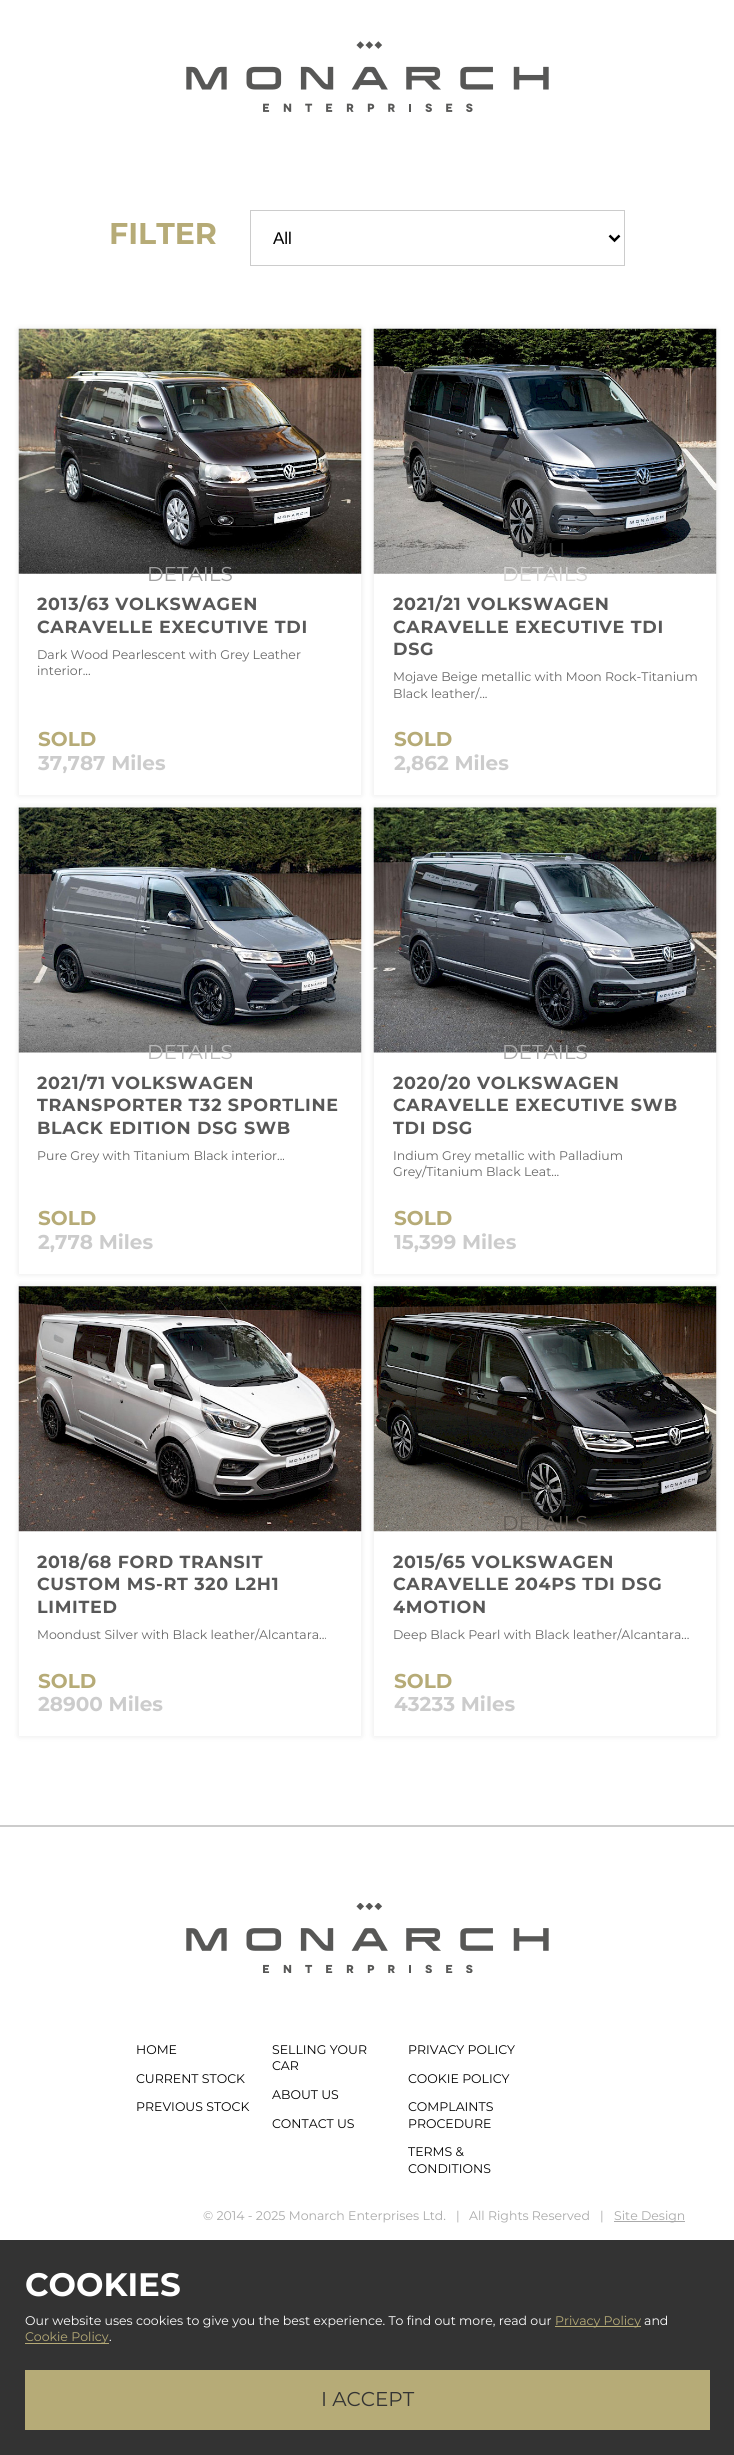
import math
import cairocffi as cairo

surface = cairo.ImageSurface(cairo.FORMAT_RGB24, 734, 2455)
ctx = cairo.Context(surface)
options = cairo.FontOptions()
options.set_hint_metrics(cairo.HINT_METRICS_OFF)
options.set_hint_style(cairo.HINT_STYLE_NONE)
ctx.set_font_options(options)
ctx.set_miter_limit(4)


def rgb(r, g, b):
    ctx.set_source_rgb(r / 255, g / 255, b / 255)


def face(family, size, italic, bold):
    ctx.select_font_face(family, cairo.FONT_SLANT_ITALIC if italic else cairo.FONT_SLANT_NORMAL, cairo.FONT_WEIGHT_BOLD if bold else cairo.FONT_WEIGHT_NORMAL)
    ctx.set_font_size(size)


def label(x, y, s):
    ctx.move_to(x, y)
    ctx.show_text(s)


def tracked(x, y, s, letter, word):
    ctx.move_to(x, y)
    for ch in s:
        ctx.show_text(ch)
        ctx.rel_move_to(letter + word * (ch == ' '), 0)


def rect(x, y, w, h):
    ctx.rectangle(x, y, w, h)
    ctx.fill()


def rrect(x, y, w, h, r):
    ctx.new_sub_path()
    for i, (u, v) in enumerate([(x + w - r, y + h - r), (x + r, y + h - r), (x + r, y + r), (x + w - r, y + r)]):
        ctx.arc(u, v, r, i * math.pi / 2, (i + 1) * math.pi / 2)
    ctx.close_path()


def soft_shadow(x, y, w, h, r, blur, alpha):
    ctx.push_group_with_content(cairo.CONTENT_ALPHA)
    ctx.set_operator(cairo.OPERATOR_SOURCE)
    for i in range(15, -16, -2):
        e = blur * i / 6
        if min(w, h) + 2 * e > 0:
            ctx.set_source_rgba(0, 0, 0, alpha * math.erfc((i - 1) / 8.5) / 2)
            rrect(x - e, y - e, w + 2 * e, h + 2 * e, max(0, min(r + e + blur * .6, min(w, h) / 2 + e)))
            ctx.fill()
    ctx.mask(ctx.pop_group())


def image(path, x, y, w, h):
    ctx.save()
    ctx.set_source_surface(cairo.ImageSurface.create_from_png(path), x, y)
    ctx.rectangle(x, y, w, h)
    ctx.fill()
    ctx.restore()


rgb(255, 255, 255)
ctx.paint()
image('image0.png', 186, 41, 363, 72)
rgb(204, 204, 204)
rect(0, 1825, 734, 2)
face('Montserrat', 30, 0, 1)
rgb(182, 171, 119)
label(109, 244, 'FILTER')
ctx.rectangle(250.5, 210.5, 374, 55)
rgb(204, 204, 204)
ctx.set_line_width(1)
ctx.stroke()
ctx.new_path()
ctx.move_to(609.5, 235.5)
ctx.line_to(614.5, 240.5)
ctx.line_to(619.5, 235.5)
rgb(0, 0, 0)
ctx.set_line_width(2.5)
ctx.stroke()
face('Liberation Sans', 17, 0, 0)
label(273, 244, 'All')
ctx.save()
ctx.set_fill_rule(cairo.FILL_RULE_EVEN_ODD)
ctx.new_path()
ctx.move_to(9, 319)
ctx.line_to(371, 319)
ctx.line_to(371, 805)
ctx.line_to(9, 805)
ctx.close_path()
ctx.move_to(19, 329)
ctx.line_to(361, 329)
ctx.line_to(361, 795)
ctx.line_to(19, 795)
ctx.close_path()
ctx.clip()
rgb(0, 0, 0)
soft_shadow(19, 329, 342, 466, 0, 3, 0.1)
ctx.restore()
image('image1.png', 18, 328, 344, 246)
face('Montserrat', 20, 0, 0)
rgb(161, 161, 161)
label(147, 581, 'DETAILS')
face('Montserrat', 17.5, 0, 1)
rgb(88, 88, 88)
tracked(37, 610, '2013/63 VOLKSWAGEN', 0.7, 0)
tracked(37, 633, 'CARAVELLE EXECUTIVE TDI', 0.7, 0)
face('Montserrat', 12.5, 0, 0)
rgb(102, 102, 102)
label(37, 659, 'Dark Wood Pearlescent with Grey Leather')
label(37, 675, 'interior...')
face('Montserrat', 20, 0, 1)
rgb(182, 171, 119)
label(38, 746, 'SOLD')
rgb(204, 204, 204)
label(38, 770, '37,787 Miles')
ctx.save()
ctx.set_fill_rule(cairo.FILL_RULE_EVEN_ODD)
ctx.new_path()
ctx.move_to(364, 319)
ctx.line_to(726, 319)
ctx.line_to(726, 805)
ctx.line_to(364, 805)
ctx.close_path()
ctx.move_to(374, 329)
ctx.line_to(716, 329)
ctx.line_to(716, 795)
ctx.line_to(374, 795)
ctx.close_path()
ctx.clip()
rgb(0, 0, 0)
soft_shadow(374, 329, 342, 466, 0, 3, 0.1)
ctx.restore()
image('image2.png', 373, 328, 344, 246)
face('Montserrat', 20, 0, 0)
rgb(56, 57, 57)
label(519, 557, 'FULL')
rgb(216, 215, 214)
label(502, 581, 'DETAILS')
face('Montserrat', 17.5, 0, 1)
rgb(88, 88, 88)
tracked(393, 610, '2021/21 VOLKSWAGEN', 0.7, 0)
tracked(393, 633, 'CARAVELLE EXECUTIVE TDI', 0.7, 0)
tracked(393, 655, 'DSG', 0.7, 0)
face('Montserrat', 12.5, 0, 0)
rgb(102, 102, 102)
label(393, 681, 'Mojave Beige metallic with Moon Rock-Titanium')
label(393, 698, 'Black leather/...')
face('Montserrat', 20, 0, 1)
rgb(182, 171, 119)
label(394, 746, 'SOLD')
rgb(204, 204, 204)
label(394, 770, '2,862 Miles')
ctx.save()
ctx.set_fill_rule(cairo.FILL_RULE_EVEN_ODD)
ctx.new_path()
ctx.move_to(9, 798)
ctx.line_to(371, 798)
ctx.line_to(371, 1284)
ctx.line_to(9, 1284)
ctx.close_path()
ctx.move_to(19, 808)
ctx.line_to(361, 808)
ctx.line_to(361, 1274)
ctx.line_to(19, 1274)
ctx.close_path()
ctx.clip()
rgb(0, 0, 0)
soft_shadow(19, 808, 342, 466, 0, 3, 0.1)
ctx.restore()
image('image3.png', 18, 807, 344, 246)
face('Montserrat', 20, 0, 0)
rgb(185, 185, 185)
label(147, 1059, 'DETAILS')
face('Montserrat', 17.5, 0, 1)
rgb(88, 88, 88)
tracked(37, 1089, '2021/71 VOLKSWAGEN', 0.7, 0)
tracked(37, 1111, 'TRANSPORTER T32 SPORTLINE', 0.7, 0)
tracked(37, 1134, 'BLACK EDITION DSG SWB', 0.7, 0)
face('Montserrat', 12.5, 0, 0)
rgb(102, 102, 102)
label(37, 1160, 'Pure Grey with Titanium Black interior...')
face('Montserrat', 20, 0, 1)
rgb(182, 171, 119)
label(38, 1225, 'SOLD')
rgb(204, 204, 204)
label(38, 1249, '2,778 Miles')
ctx.save()
ctx.set_fill_rule(cairo.FILL_RULE_EVEN_ODD)
ctx.new_path()
ctx.move_to(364, 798)
ctx.line_to(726, 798)
ctx.line_to(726, 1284)
ctx.line_to(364, 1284)
ctx.close_path()
ctx.move_to(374, 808)
ctx.line_to(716, 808)
ctx.line_to(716, 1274)
ctx.line_to(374, 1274)
ctx.close_path()
ctx.clip()
rgb(0, 0, 0)
soft_shadow(374, 808, 342, 466, 0, 3, 0.1)
ctx.restore()
image('image4.png', 373, 807, 344, 246)
face('Montserrat', 20, 0, 0)
rgb(170, 170, 170)
label(502, 1059, 'DETAILS')
face('Montserrat', 17.5, 0, 1)
rgb(88, 88, 88)
tracked(393, 1089, '2020/20 VOLKSWAGEN', 0.7, 0)
tracked(393, 1111, 'CARAVELLE EXECUTIVE SWB', 0.7, 0)
tracked(393, 1134, 'TDI DSG', 0.7, 0)
face('Montserrat', 12.5, 0, 0)
rgb(102, 102, 102)
label(393, 1160, 'Indium Grey metallic with Palladium')
label(393, 1176, 'Grey/Titanium Black Leat...')
face('Montserrat', 20, 0, 1)
rgb(182, 171, 119)
label(394, 1225, 'SOLD')
rgb(204, 204, 204)
label(394, 1249, '15,399 Miles')
ctx.save()
ctx.set_fill_rule(cairo.FILL_RULE_EVEN_ODD)
ctx.new_path()
ctx.move_to(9, 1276)
ctx.line_to(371, 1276)
ctx.line_to(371, 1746)
ctx.line_to(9, 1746)
ctx.close_path()
ctx.move_to(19, 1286)
ctx.line_to(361, 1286)
ctx.line_to(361, 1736)
ctx.line_to(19, 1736)
ctx.close_path()
ctx.clip()
rgb(0, 0, 0)
soft_shadow(19, 1286, 342, 450, 0, 3, 0.1)
ctx.restore()
image('image5.png', 18, 1286, 344, 246)
face('Montserrat', 17.5, 0, 1)
rgb(88, 88, 88)
tracked(37, 1568, '2018/68 FORD TRANSIT', 0.7, 0)
tracked(37, 1590, 'CUSTOM MS-RT 320 L2H1', 0.7, 0)
tracked(37, 1613, 'LIMITED', 0.7, 0)
face('Montserrat', 12.5, 0, 0)
rgb(102, 102, 102)
label(37, 1639, 'Moondust Silver with Black leather/Alcantara...')
face('Montserrat', 20, 0, 1)
rgb(182, 171, 119)
label(38, 1688, 'SOLD')
rgb(204, 204, 204)
label(38, 1711, '28900 Miles')
ctx.save()
ctx.set_fill_rule(cairo.FILL_RULE_EVEN_ODD)
ctx.new_path()
ctx.move_to(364, 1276)
ctx.line_to(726, 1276)
ctx.line_to(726, 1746)
ctx.line_to(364, 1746)
ctx.close_path()
ctx.move_to(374, 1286)
ctx.line_to(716, 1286)
ctx.line_to(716, 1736)
ctx.line_to(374, 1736)
ctx.close_path()
ctx.clip()
rgb(0, 0, 0)
soft_shadow(374, 1286, 342, 450, 0, 3, 0.1)
ctx.restore()
image('image6.png', 373, 1286, 344, 246)
face('Montserrat', 20, 0, 0)
rgb(56, 57, 57)
label(519, 1506, 'FULL')
rgb(96, 90, 84)
label(502, 1530, 'DETAILS')
face('Montserrat', 17.5, 0, 1)
rgb(88, 88, 88)
tracked(393, 1568, '2015/65 VOLKSWAGEN', 0.7, 0)
tracked(393, 1590, 'CARAVELLE 204PS TDI DSG', 0.7, 0)
tracked(393, 1613, '4MOTION', 0.7, 0)
face('Montserrat', 12.5, 0, 0)
rgb(102, 102, 102)
label(393, 1639, 'Deep Black Pearl with Black leather/Alcantara...')
face('Montserrat', 20, 0, 1)
rgb(182, 171, 119)
label(394, 1688, 'SOLD')
rgb(204, 204, 204)
label(394, 1711, '43233 Miles')
image('image7.png', 186, 1903, 363, 70)
face('Montserrat', 12.5, 0, 0)
rgb(0, 0, 0)
label(136, 2054, 'HOME')
label(136, 2083, 'CURRENT STOCK')
label(136, 2111, 'PREVIOUS STOCK')
label(272, 2054, 'SELLING YOUR')
label(272, 2070, 'CAR')
label(272, 2099, 'ABOUT US')
label(272, 2128, 'CONTACT US')
label(408, 2054, 'PRIVACY POLICY')
label(408, 2083, 'COOKIE POLICY')
label(408, 2111, 'COMPLAINTS')
label(408, 2128, 'PROCEDURE')
label(408, 2156, 'TERMS &')
label(408, 2173, 'CONDITIONS')
rgb(170, 170, 170)
label(203, 2220, '© 2014 - 2025 Monarch Enterprises Ltd.')
label(456, 2220, '|')
label(469, 2220, 'All Rights Reserved')
label(600, 2220, '|')
rect(614, 2221, 71, 1)
label(614, 2220, 'Site Design')
rgb(51, 51, 51)
rect(0, 2240, 734, 215)
face('Montserrat', 32.5, 0, 1)
rgb(255, 255, 255)
label(25, 2296, 'COOKIES')
face('Montserrat', 12.5, 0, 0)
label(25, 2325, 'Our website uses cookies to give you the best experience. To find out more, read our')
rgb(182, 171, 119)
rect(555, 2326, 86, 1)
label(555, 2325, 'Privacy Policy')
rgb(255, 255, 255)
label(644, 2325, 'and')
rgb(182, 171, 119)
rect(25, 2343, 84, 1)
label(25, 2341, 'Cookie Policy')
rgb(255, 255, 255)
label(109, 2341, '.')
rgb(182, 171, 119)
rect(25, 2370, 685, 60)
face('Montserrat', 20, 0, 0)
rgb(51, 51, 51)
label(321, 2406, 'I ACCEPT')
surface.write_to_png('render.png')
